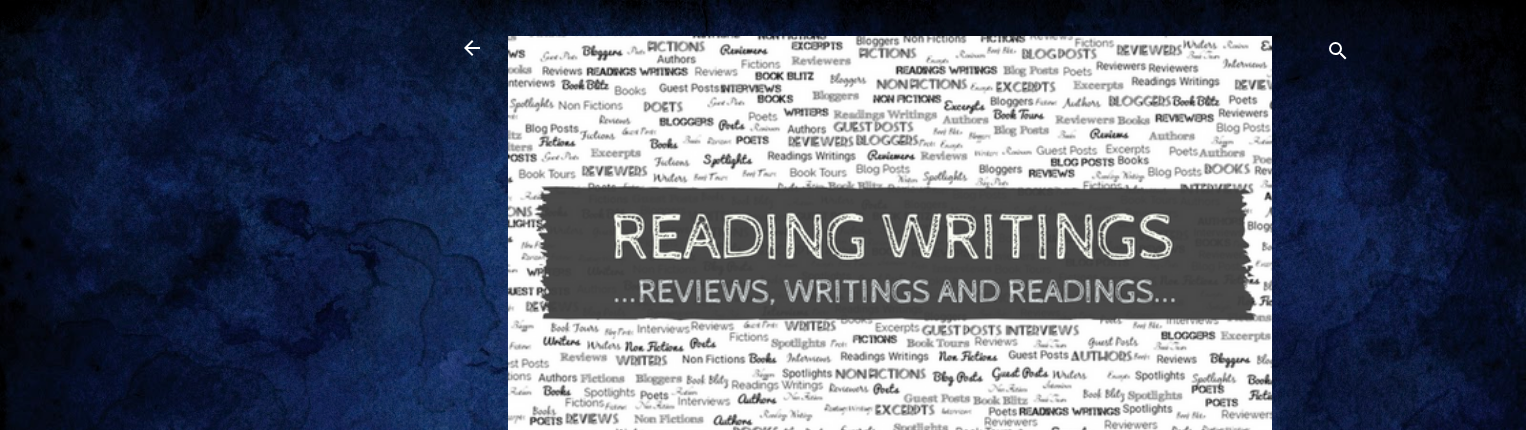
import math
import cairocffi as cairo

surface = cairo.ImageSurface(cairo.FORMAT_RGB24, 1526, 430)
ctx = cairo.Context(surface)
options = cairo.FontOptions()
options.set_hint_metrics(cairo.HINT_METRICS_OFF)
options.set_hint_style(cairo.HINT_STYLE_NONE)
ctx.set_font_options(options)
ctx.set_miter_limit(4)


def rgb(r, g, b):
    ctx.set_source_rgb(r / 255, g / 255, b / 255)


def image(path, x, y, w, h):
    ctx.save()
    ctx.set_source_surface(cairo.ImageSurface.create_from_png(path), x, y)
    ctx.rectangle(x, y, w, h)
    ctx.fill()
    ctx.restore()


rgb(255, 255, 255)
ctx.paint()
image('image0.png', 0, 0, 1526, 430)
image('image1.png', 464, 40, 16, 16)
image('image2.png', 508, 36, 764, 394)
image('image3.png', 1329, 42, 18, 18)
surface.write_to_png('render.png')
